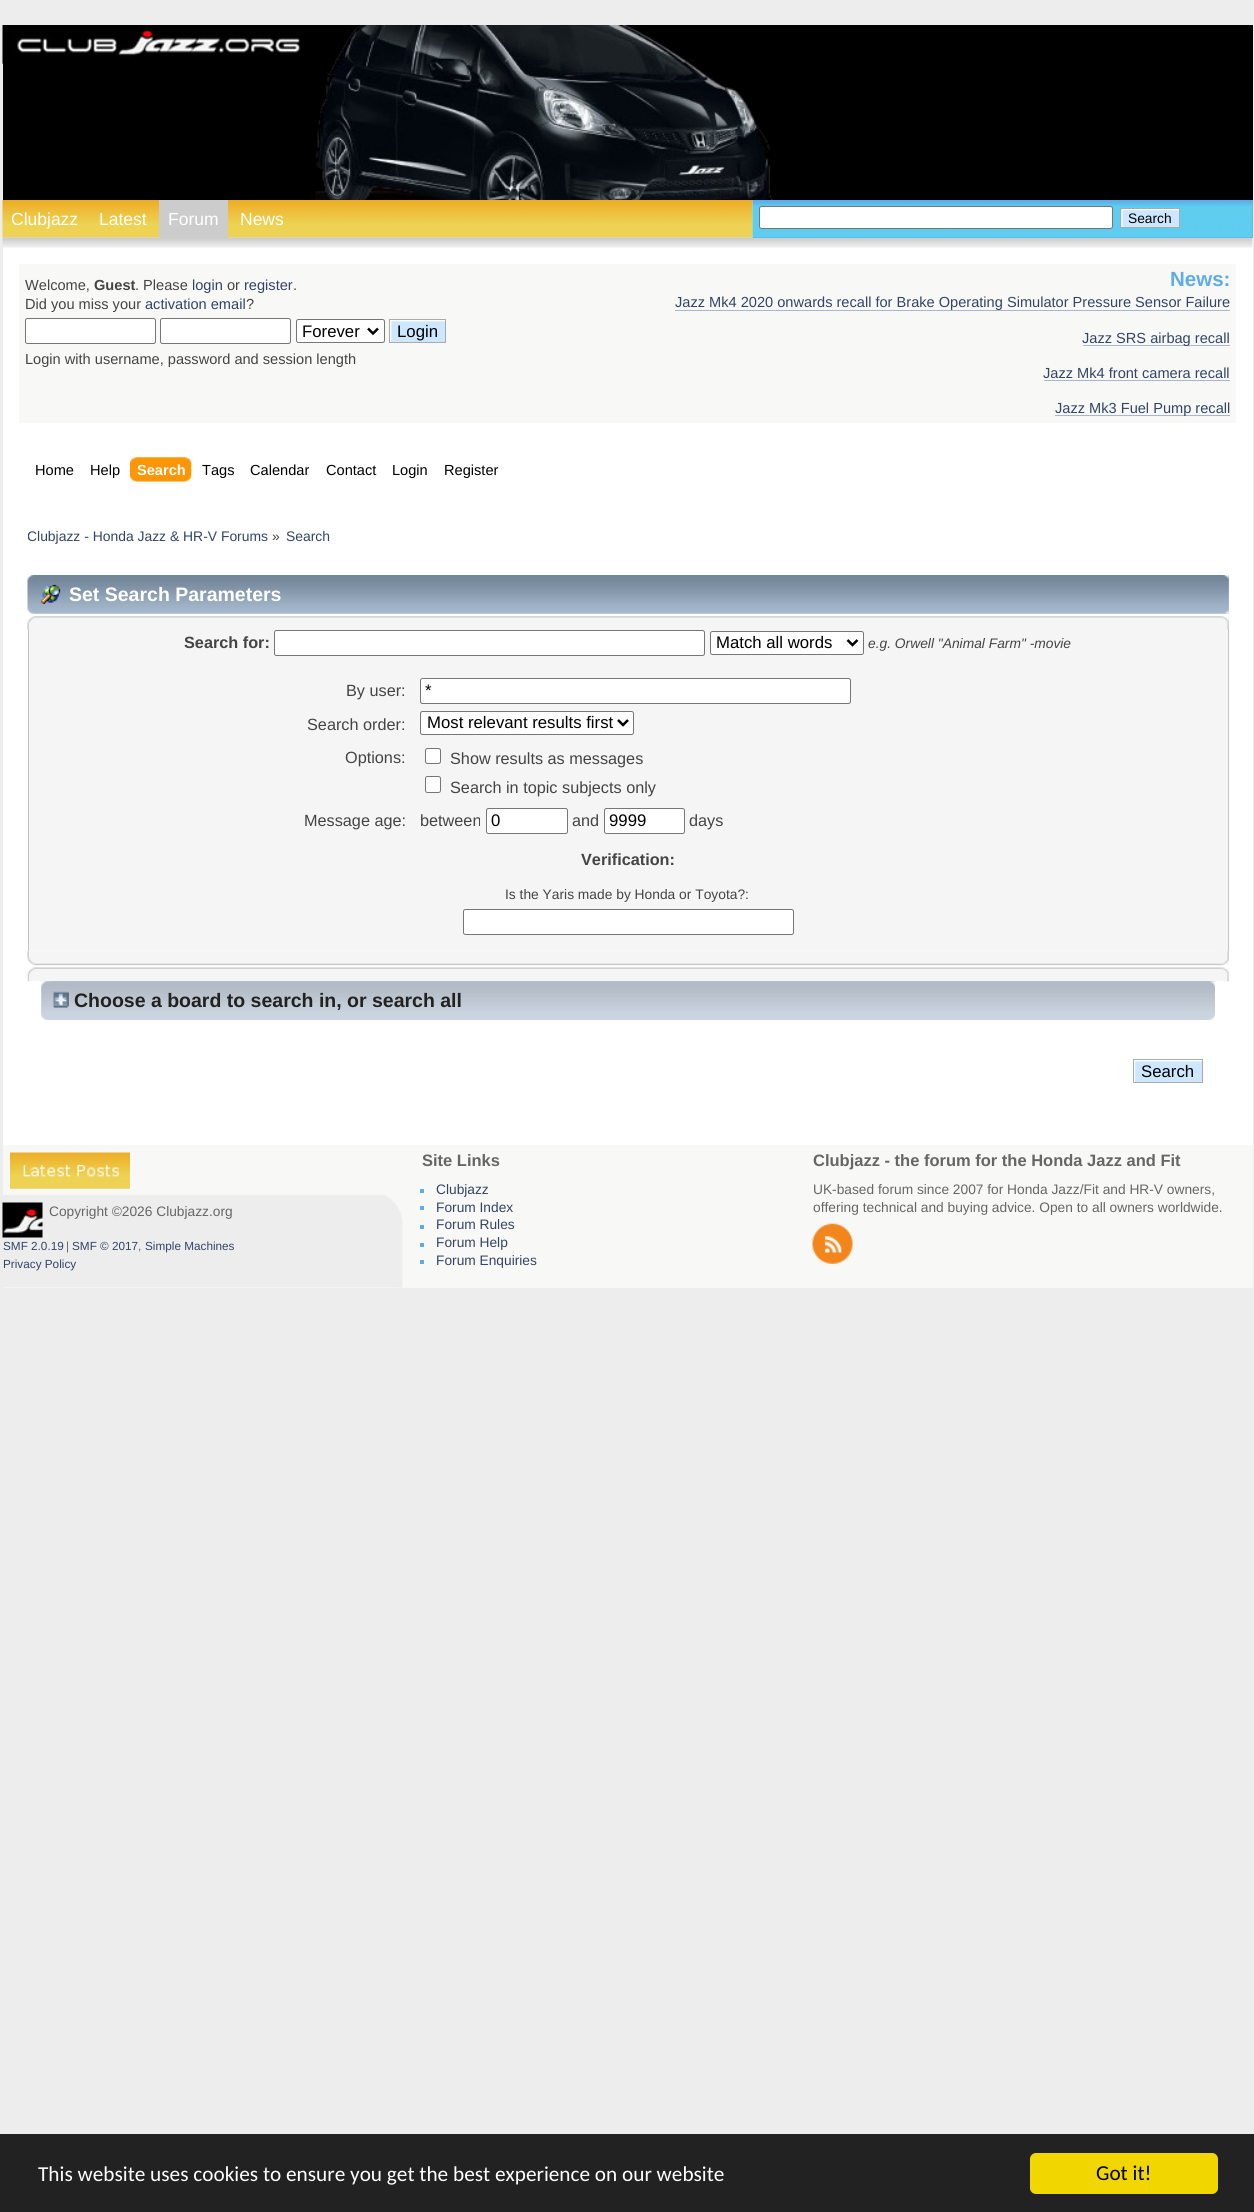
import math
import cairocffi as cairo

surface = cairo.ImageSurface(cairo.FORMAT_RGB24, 1254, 2212)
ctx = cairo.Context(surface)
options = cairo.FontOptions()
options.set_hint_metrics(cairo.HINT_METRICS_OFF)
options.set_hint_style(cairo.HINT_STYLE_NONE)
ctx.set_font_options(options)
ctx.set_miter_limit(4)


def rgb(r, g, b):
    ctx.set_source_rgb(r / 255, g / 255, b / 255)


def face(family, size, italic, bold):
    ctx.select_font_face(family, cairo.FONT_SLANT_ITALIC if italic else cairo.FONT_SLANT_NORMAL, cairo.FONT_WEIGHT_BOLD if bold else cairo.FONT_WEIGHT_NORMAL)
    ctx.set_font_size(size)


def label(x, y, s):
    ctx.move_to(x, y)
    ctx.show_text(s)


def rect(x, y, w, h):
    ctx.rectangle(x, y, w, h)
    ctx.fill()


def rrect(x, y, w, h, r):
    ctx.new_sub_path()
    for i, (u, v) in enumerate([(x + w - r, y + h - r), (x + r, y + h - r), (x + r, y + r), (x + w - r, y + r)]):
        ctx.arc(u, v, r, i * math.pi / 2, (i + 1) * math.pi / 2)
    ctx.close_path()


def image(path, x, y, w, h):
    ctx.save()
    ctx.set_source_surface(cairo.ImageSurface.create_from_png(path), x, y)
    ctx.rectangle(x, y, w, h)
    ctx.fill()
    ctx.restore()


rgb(237, 237, 237)
ctx.paint()
rgb(0, 0, 0)
rect(3, 25, 1250, 175)
image('image0.png', 2, 25, 299, 39)
image('image1.png', 315, 25, 460, 175)
image('image2.png', 2, 200, 751, 38)
face('Liberation Sans', 17.5, 0, 0)
rgb(255, 255, 255)
label(11, 225, 'Clubjazz')
label(99, 225, 'Latest')
rgb(204, 204, 204)
rect(159, 200, 69, 38)
rgb(255, 255, 255)
label(168, 225, 'Forum')
label(240, 225, 'News')
rect(3, 238, 1250, 907)
image('image5.png', 2, 237, 1251, 11)
rgb(94, 173, 234)
rect(753, 200, 500, 38)
image('image3.png', 752, 200, 501, 38)
rgb(255, 255, 255)
rrect(759.5, 206.5, 353, 22, 2)
ctx.fill_preserve()
rgb(118, 118, 118)
ctx.set_line_width(1)
ctx.stroke()
image('image4.png', 1121, 209, 58, 18)
ctx.rectangle(1120.5, 208.5, 59, 19)
rgb(170, 170, 170)
ctx.stroke()
face('Liberation Sans', 13.75, 0, 0)
rgb(0, 0, 0)
label(1128, 223, 'Search')
rgb(248, 248, 246)
rect(19, 264, 1217, 159)
face('Liberation Sans', 14.6, 0, 0)
rgb(68, 68, 68)
label(25, 290, 'Welcome,')
face('Liberation Sans', 14.6, 0, 1)
label(94, 290, 'Guest')
face('Liberation Sans', 14.6, 0, 0)
label(135, 290, '. Please')
rgb(51, 68, 102)
label(192, 290, 'login')
rgb(68, 68, 68)
label(227, 290, 'or')
rgb(51, 68, 102)
label(244, 290, 'register')
rgb(68, 68, 68)
label(293, 290, '.')
label(25, 309, 'Did you miss your')
rgb(51, 68, 102)
label(145, 309, 'activation email')
rgb(68, 68, 68)
label(246, 309, '?')
rgb(255, 255, 255)
rrect(25.5, 318.5, 130, 25, 2)
ctx.fill_preserve()
rgb(118, 118, 118)
ctx.stroke()
rgb(255, 255, 255)
rrect(160.5, 318.5, 130, 25, 2)
ctx.fill_preserve()
rgb(118, 118, 118)
ctx.stroke()
rgb(255, 255, 255)
rrect(296.5, 319.5, 88, 23, 2)
ctx.fill_preserve()
rgb(118, 118, 118)
ctx.stroke()
ctx.new_path()
ctx.move_to(368, 328.5)
ctx.line_to(373, 333.5)
ctx.line_to(378, 328.5)
rgb(0, 0, 0)
ctx.set_line_width(2.5)
ctx.stroke()
face('Liberation Sans', 16.75, 0, 0)
label(302, 337, 'Forever')
image('image6.png', 390, 320, 57, 23)
ctx.rectangle(389.5, 319.5, 56, 23)
rgb(170, 170, 170)
ctx.set_line_width(1)
ctx.stroke()
rgb(0, 0, 0)
label(397, 337, 'Login')
face('Liberation Sans', 14.6, 0, 0)
rgb(68, 68, 68)
label(25, 364, 'Login with username, password and session length')
face('Liberation Sans', 20.5, 0, 1)
rgb(94, 173, 234)
label(1170, 286, 'News:')
rgb(168, 182, 207)
rect(675, 310, 555, 1)
face('Liberation Sans', 14.6, 0, 0)
rgb(51, 68, 102)
label(675, 307, 'Jazz Mk4 2020 onwards recall for Brake Operating Simulator Pressure Sensor Failure')
rgb(168, 182, 207)
rect(1083, 345, 147, 1)
rgb(51, 68, 102)
label(1082, 343, 'Jazz SRS airbag recall')
label(1043, 378, 'Jazz Mk4 front camera recall')
rgb(168, 182, 207)
rect(1044, 380, 186, 1)
rect(1055, 415, 175, 1)
rgb(51, 68, 102)
label(1055, 413, 'Jazz Mk3 Fuel Pump recall')
rgb(0, 0, 0)
label(35, 475, 'Home')
label(90, 475, 'Help')
image('image7.png', 136, 457, 56, 25)
image('image8.png', 130, 457, 55, 25)
face('Liberation Sans', 14.6, 0, 1)
rgb(255, 255, 255)
label(137, 475, 'Search')
face('Liberation Sans', 14.6, 0, 0)
rgb(0, 0, 0)
label(202, 475, 'Tags')
label(250, 475, 'Calendar')
label(326, 475, 'Contact')
label(392, 475, 'Login')
label(444, 475, 'Register')
ctx.save()
ctx.rectangle(28, 509, 1201, 50)
ctx.clip()
face('Liberation Sans', 13.9, 0, 0)
rgb(51, 68, 102)
label(27, 541, 'Clubjazz - Honda Jazz & HR-V Forums')
ctx.restore()
face('Liberation Sans', 13.9, 0, 0)
rgb(68, 68, 68)
label(272, 541, '»')
rgb(51, 68, 102)
label(286, 541, 'Search')
image('image9.png', 27, 575, 1202, 39)
image('image10.png', 1223, 575, 6, 39)
image('image11.png', 41, 584, 20, 20)
face('Liberation Sans', 19.5, 0, 1)
rgb(255, 255, 255)
label(69, 601, 'Set Search Parameters')
image('image12.png', 27, 616, 1202, 14)
image('image13.png', 1221, 616, 8, 14)
rgb(245, 245, 245)
rect(29, 630, 1199, 321)
rgb(197, 197, 197)
rect(1228, 630, 1, 321)
rect(28, 630, 1, 321)
face('Liberation Sans', 16.25, 0, 1)
rgb(68, 68, 68)
label(184, 648, 'Search for:')
rgb(255, 255, 255)
rrect(274.5, 630.5, 430, 25, 2)
ctx.fill_preserve()
rgb(118, 118, 118)
ctx.stroke()
rgb(255, 255, 255)
rrect(710.5, 631.5, 153, 23, 2)
ctx.fill_preserve()
rgb(118, 118, 118)
ctx.stroke()
ctx.new_path()
ctx.move_to(847.5, 640)
ctx.line_to(852.5, 645)
ctx.line_to(857.5, 640)
rgb(0, 0, 0)
ctx.set_line_width(2.5)
ctx.stroke()
face('Liberation Sans', 16.75, 0, 0)
label(716, 648, 'Match all words')
face('Liberation Sans', 13.8, 1, 0)
rgb(68, 68, 68)
label(868, 648, 'e.g. Orwell "Animal Farm" -movie')
face('Liberation Sans', 16.25, 0, 0)
label(346, 696, 'By user:')
rgb(255, 255, 255)
rrect(420.5, 678.5, 430, 25, 2)
ctx.fill_preserve()
rgb(118, 118, 118)
ctx.set_line_width(1)
ctx.stroke()
face('Liberation Sans', 16.75, 0, 0)
rgb(0, 0, 0)
label(425, 696, '*')
face('Liberation Sans', 16.25, 0, 0)
rgb(68, 68, 68)
label(307, 730, 'Search order:')
rgb(255, 255, 255)
rrect(420.5, 711.5, 213, 23, 2)
ctx.fill_preserve()
rgb(118, 118, 118)
ctx.stroke()
ctx.new_path()
ctx.move_to(618, 720)
ctx.line_to(623, 725)
ctx.line_to(628, 720)
rgb(0, 0, 0)
ctx.set_line_width(2.5)
ctx.stroke()
face('Liberation Sans', 16.75, 0, 0)
label(427, 728, 'Most relevant results first')
face('Liberation Sans', 16.25, 0, 0)
rgb(68, 68, 68)
label(345, 763, 'Options:')
rgb(255, 255, 255)
rrect(425.5, 748.5, 15, 15, 2)
ctx.fill_preserve()
rgb(118, 118, 118)
ctx.set_line_width(1)
ctx.stroke()
rgb(68, 68, 68)
label(450, 764, 'Show results as messages')
rgb(255, 255, 255)
rrect(425.5, 776.5, 15, 16, 2)
ctx.fill_preserve()
rgb(118, 118, 118)
ctx.stroke()
rgb(68, 68, 68)
label(450, 793, 'Search in topic subjects only')
label(304, 826, 'Message age:')
label(420, 826, 'between')
rgb(255, 255, 255)
rrect(486.5, 808.5, 81, 25, 2)
ctx.fill_preserve()
rgb(118, 118, 118)
ctx.stroke()
face('Liberation Sans', 16.75, 0, 0)
rgb(0, 0, 0)
label(491, 826, '0')
face('Liberation Sans', 16.25, 0, 0)
rgb(68, 68, 68)
label(572, 826, 'and')
rgb(255, 255, 255)
rrect(604.5, 808.5, 80, 25, 2)
ctx.fill_preserve()
rgb(118, 118, 118)
ctx.stroke()
face('Liberation Sans', 16.75, 0, 0)
rgb(0, 0, 0)
label(609, 826, '9999')
face('Liberation Sans', 16.25, 0, 0)
rgb(68, 68, 68)
label(689, 826, 'days')
face('Liberation Sans', 16.25, 0, 1)
label(581, 865, 'Verification:')
face('Liberation Sans', 13.8, 0, 0)
label(505, 899, 'Is the Yaris made by Honda or Toyota?:')
rgb(255, 255, 255)
rrect(463.5, 909.5, 330, 25, 2)
ctx.fill_preserve()
rgb(118, 118, 118)
ctx.stroke()
image('image14.png', 27, 951, 1202, 15)
image('image15.png', 1221, 951, 8, 15)
image('image16.png', 27, 967, 1202, 15)
image('image17.png', 1221, 967, 8, 15)
rgb(227, 233, 239)
rect(41, 981, 1174, 39)
image('image18.png', 41, 981, 1174, 39)
image('image19.png', 53, 981, 1162, 39)
image('image20.png', 52, 991, 17, 17)
face('Liberation Sans', 19.5, 0, 1)
rgb(34, 34, 34)
label(74, 1007, 'Choose a board to search in, or search all')
image('image21.png', 1134, 1060, 68, 22)
ctx.rectangle(1133.5, 1059.5, 69, 23)
rgb(170, 170, 170)
ctx.stroke()
face('Liberation Sans', 16.75, 0, 0)
rgb(0, 0, 0)
label(1141, 1077, 'Search')
rgb(248, 248, 246)
rect(3, 1145, 1250, 143)
face('Liberation Sans', 16.5, 0, 1)
rgb(102, 102, 102)
label(422, 1166, 'Site Links')
rgb(94, 173, 234)
rect(420, 1189, 4, 4)
face('Liberation Sans', 13.75, 0, 0)
rgb(51, 68, 102)
label(436, 1194, 'Clubjazz')
rgb(94, 173, 234)
rect(420, 1206, 4, 4)
rgb(51, 68, 102)
label(436, 1212, 'Forum Index')
rgb(94, 173, 234)
rect(420, 1225, 4, 4)
rgb(51, 68, 102)
label(436, 1229, 'Forum Rules')
rgb(94, 173, 234)
rect(420, 1243, 4, 4)
rgb(51, 68, 102)
label(436, 1247, 'Forum Help')
rgb(94, 173, 234)
rect(420, 1260, 4, 4)
rgb(51, 68, 102)
label(436, 1265, 'Forum Enquiries')
face('Liberation Sans', 16.5, 0, 1)
rgb(102, 102, 102)
label(813, 1166, 'Clubjazz - the forum for the Honda Jazz and Fit')
face('Liberation Sans', 13.75, 0, 0)
label(813, 1194, 'UK-based forum since 2007 for Honda Jazz/Fit and HR-V owners,')
label(813, 1212, 'offering technical and buying advice. Open to all owners worldwide.')
image('image22.png', 812, 1223, 41, 41)
image('image23.png', 10, 1152, 120, 37)
image('image24.png', 3, 1195, 400, 93)
image('image25.png', 2, 1202, 41, 36)
label(49, 1216, 'Copyright ©2026 Clubjazz.org')
face('Liberation Sans', 11.75, 0, 0)
rgb(51, 68, 102)
label(3, 1250, 'SMF 2.0.19')
rgb(102, 102, 102)
label(66, 1250, '|')
rgb(51, 68, 102)
label(72, 1250, 'SMF © 2017')
rgb(102, 102, 102)
label(138, 1250, ',')
rgb(51, 68, 102)
label(145, 1250, 'Simple Machines')
label(3, 1268, 'Privacy Policy')
rgb(34, 34, 34)
rect(0, 2134, 1254, 78)
face('Carlito', 21.25, 0, 0)
rgb(255, 255, 255)
label(38, 2181, 'This website uses cookies to ensure you get the best experience on our website')
rgb(241, 214, 0)
rrect(1030, 2153, 188, 41, 6)
ctx.fill()
rgb(0, 0, 0)
label(1096, 2180, 'Got it!')
surface.write_to_png('render.png')
